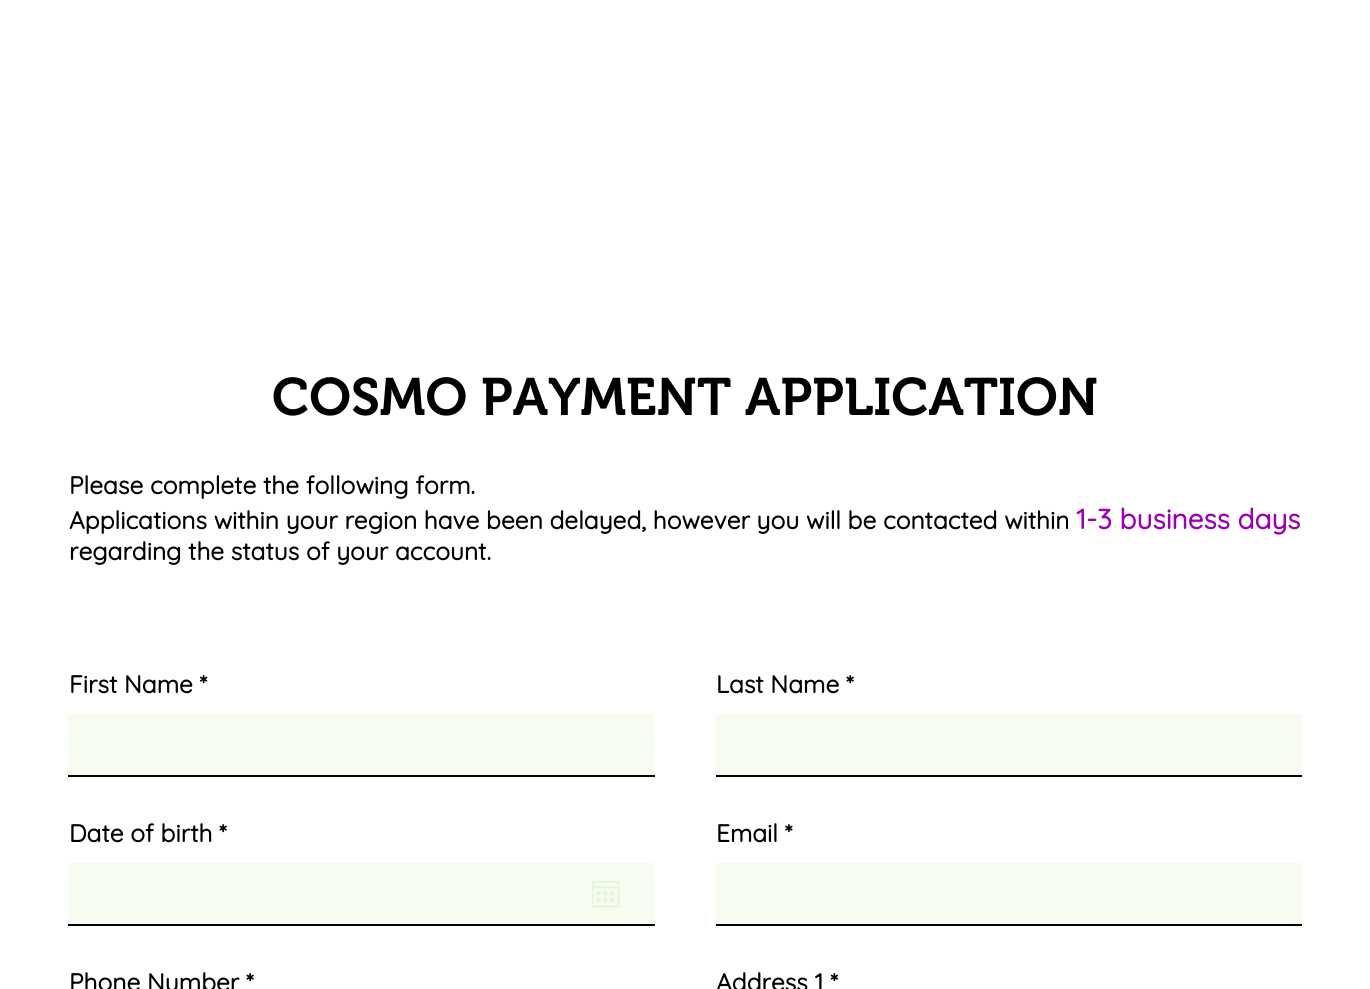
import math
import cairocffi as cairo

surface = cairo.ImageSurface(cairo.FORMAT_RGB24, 1370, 989)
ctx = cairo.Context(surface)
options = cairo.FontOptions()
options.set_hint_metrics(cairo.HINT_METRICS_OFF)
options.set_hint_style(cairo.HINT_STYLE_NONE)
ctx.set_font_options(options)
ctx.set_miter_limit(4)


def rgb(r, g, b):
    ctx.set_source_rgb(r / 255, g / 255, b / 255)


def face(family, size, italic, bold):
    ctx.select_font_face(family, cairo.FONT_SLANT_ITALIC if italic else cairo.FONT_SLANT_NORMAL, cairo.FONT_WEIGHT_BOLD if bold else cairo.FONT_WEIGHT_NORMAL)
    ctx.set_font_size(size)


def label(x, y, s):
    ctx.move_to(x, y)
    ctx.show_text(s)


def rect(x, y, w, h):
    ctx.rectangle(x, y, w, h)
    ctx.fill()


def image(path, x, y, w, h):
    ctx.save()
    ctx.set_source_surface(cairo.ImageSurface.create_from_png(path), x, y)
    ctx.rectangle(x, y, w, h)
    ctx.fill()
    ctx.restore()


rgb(255, 255, 255)
ctx.paint()
face('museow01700 SemiBold', 52.5, 0, 0)
rgb(0, 0, 0)
label(272, 415, 'COSMO PAYMENT APPLICATION')
face('Quicksand', 24.5, 0, 1)
label(69, 494, 'Please complete the following form.')
label(69, 529, 'Applications within your region have been delayed, however you will be contacted within')
face('Quicksand', 28, 0, 1)
rgb(155, 0, 179)
label(1076, 529, '1-3 business days')
face('Quicksand', 24.5, 0, 1)
rgb(0, 0, 0)
label(69, 560, 'regarding the status of your account.')
label(69, 693, 'First Name *')
rgb(246, 252, 239)
rect(68, 714, 587, 61)
rgb(0, 0, 0)
rect(68, 775, 587, 2)
label(716, 693, 'Last Name *')
rgb(246, 252, 239)
rect(716, 714, 586, 61)
rgb(0, 0, 0)
rect(716, 775, 586, 2)
label(69, 842, 'Date of birth *')
rgb(246, 252, 239)
rect(68, 863, 587, 61)
rgb(0, 0, 0)
rect(68, 924, 587, 2)
image('image0.png', 592, 881, 28, 27)
label(716, 842, 'Email *')
rgb(246, 252, 239)
rect(716, 863, 586, 61)
rgb(0, 0, 0)
rect(716, 924, 586, 2)
label(69, 991, 'Phone Number *')
label(716, 991, 'Address 1 *')
surface.write_to_png('render.png')
